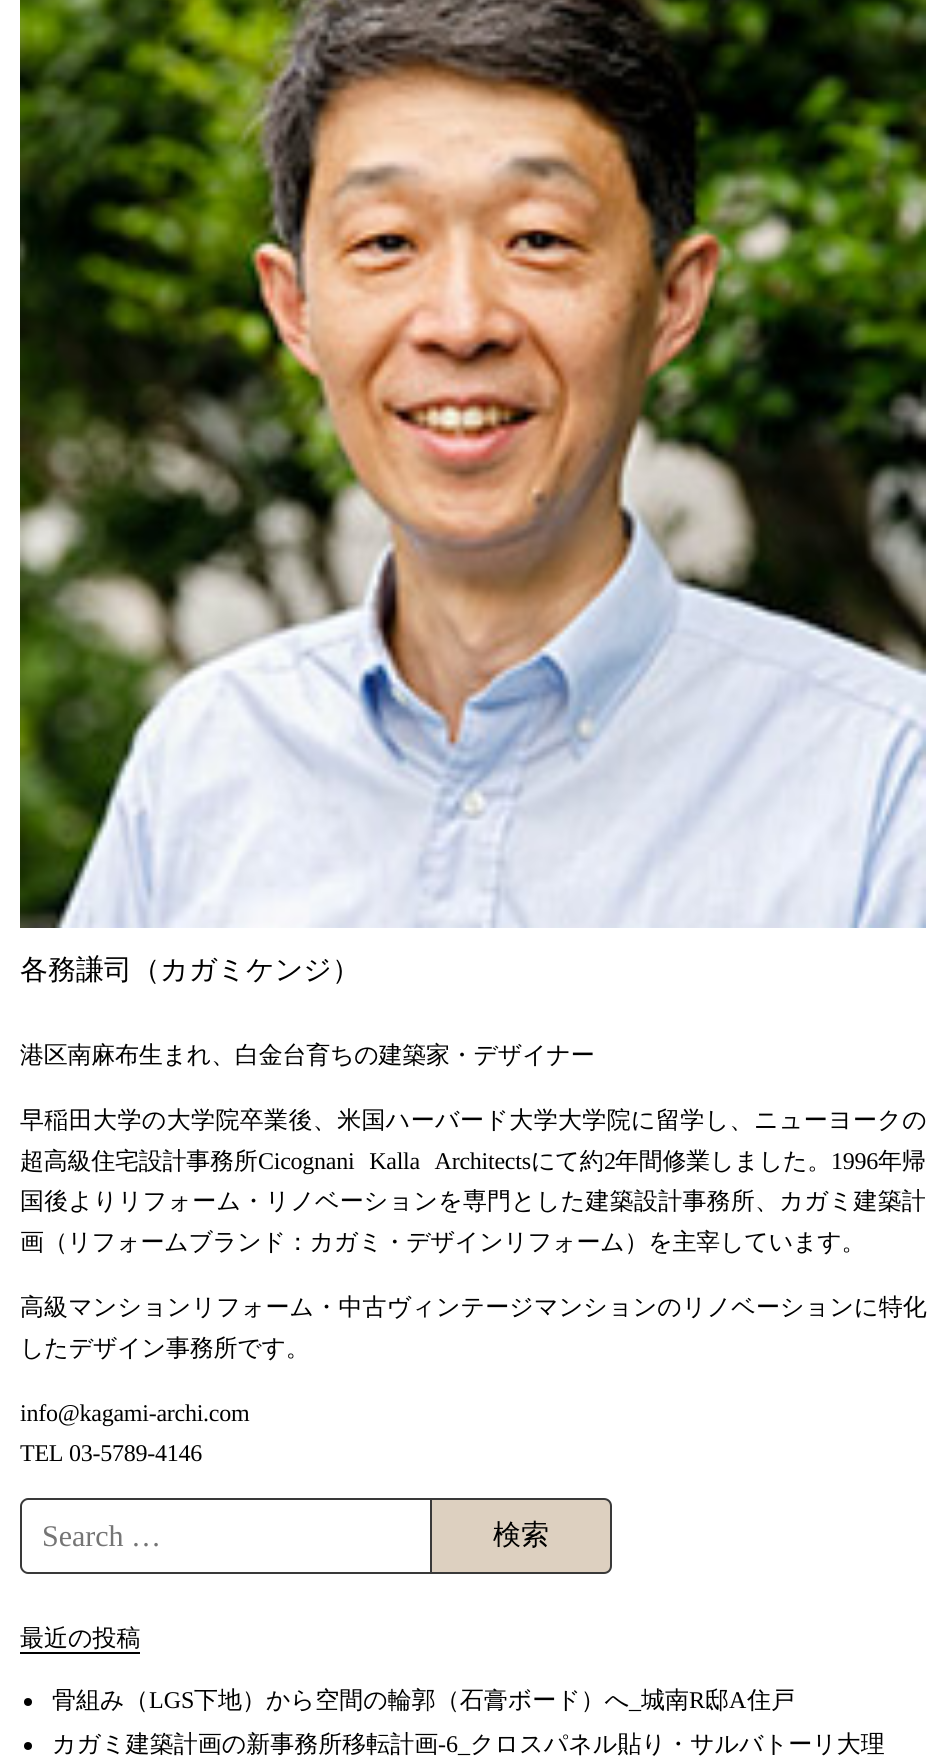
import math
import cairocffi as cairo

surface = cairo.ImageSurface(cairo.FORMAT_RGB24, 945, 1761)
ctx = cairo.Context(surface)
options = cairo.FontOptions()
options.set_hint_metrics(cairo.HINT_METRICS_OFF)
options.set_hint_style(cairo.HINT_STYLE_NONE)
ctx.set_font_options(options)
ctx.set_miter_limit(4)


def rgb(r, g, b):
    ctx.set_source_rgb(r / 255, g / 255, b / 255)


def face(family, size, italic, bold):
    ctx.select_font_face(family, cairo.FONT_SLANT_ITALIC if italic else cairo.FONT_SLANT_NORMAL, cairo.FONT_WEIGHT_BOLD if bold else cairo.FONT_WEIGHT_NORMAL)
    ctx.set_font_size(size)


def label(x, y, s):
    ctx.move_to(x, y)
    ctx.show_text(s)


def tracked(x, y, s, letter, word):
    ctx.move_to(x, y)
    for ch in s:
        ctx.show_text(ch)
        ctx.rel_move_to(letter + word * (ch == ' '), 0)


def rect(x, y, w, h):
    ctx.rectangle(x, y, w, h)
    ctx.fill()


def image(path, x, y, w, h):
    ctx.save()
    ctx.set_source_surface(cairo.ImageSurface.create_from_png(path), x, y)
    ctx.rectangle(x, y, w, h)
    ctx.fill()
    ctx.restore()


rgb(255, 255, 255)
ctx.paint()
image('image0.png', 20, 0, 906, 928)
face('WenQuanYi Zen Hei Medium', 28, 0, 0)
rgb(0, 0, 0)
label(20, 979, '各務謙司（カガミケンジ）')
face('WenQuanYi Zen Hei Medium', 24, 0, 0)
tracked(20, 1063, '港区南麻布生まれ、白金台育ちの建築家・デザイナー', -0.25, 0)
tracked(20, 1128, '早稲田大学の大学院卒業後、米国ハーバード大学大学院に留学し、ニューヨークの', 0.35, 0)
tracked(20, 1169, '超高級住宅設計事務所', -0.25, 0)
face('Liberation Serif', 24, 0, 0)
tracked(258, 1169, 'Cicognani Kalla Architects', -0.25, 9)
face('WenQuanYi Zen Hei Medium', 24, 0, 0)
tracked(531, 1169, 'にて約', -0.25, 0)
face('Liberation Serif', 24, 0, 0)
tracked(604, 1169, '2', -0.25, 0)
face('WenQuanYi Zen Hei Medium', 24, 0, 0)
tracked(615, 1169, '年間修業しました。', -0.25, 0)
face('Liberation Serif', 24, 0, 0)
tracked(831, 1169, '1996', -0.25, 0)
face('WenQuanYi Zen Hei Medium', 24, 0, 0)
tracked(878, 1169, '年帰', -0.25, 0)
tracked(20, 1209, '国後よりリフォーム・リノベーションを専門とした建築設計事務所、カガミ建築計', 0.2, 0)
tracked(20, 1250, '画（リフォームブランド：カガミ・デザインリフォーム）を主宰しています。', -0.25, 0)
tracked(20, 1315, '高級マンションリフォーム・中古ヴィンテージマンションのリノベーションに特化', 0.1, 0)
tracked(20, 1356, 'したデザイン事務所です。', -0.25, 0)
face('Liberation Serif', 24, 0, 0)
tracked(20, 1421, 'info@kagami-archi.com', -0.25, 0)
tracked(20, 1461, 'TEL 03-5789-4146', -0.25, 0)
rgb(57, 57, 57)
ctx.set_fill_rule(cairo.FILL_RULE_EVEN_ODD)
ctx.new_path()
ctx.move_to(28, 1498)
ctx.line_to(430, 1498)
ctx.line_to(430, 1574)
ctx.line_to(28, 1574)
ctx.curve_to(24, 1574, 20, 1570, 20, 1566)
ctx.line_to(20, 1506)
ctx.curve_to(20, 1502, 24, 1498, 28, 1498)
ctx.close_path()
ctx.move_to(28, 1500)
ctx.line_to(430, 1500)
ctx.line_to(430, 1572)
ctx.line_to(28, 1572)
ctx.curve_to(25, 1572, 22, 1569, 22, 1566)
ctx.line_to(22, 1506)
ctx.curve_to(22, 1503, 25, 1500, 28, 1500)
ctx.close_path()
ctx.fill()
face('Liberation Serif', 30, 0, 0)
rgb(117, 117, 117)
label(42, 1546, 'Search …')
rgb(221, 208, 192)
ctx.new_path()
ctx.move_to(431, 1499)
ctx.line_to(604, 1499)
ctx.curve_to(608, 1499, 611, 1502, 611, 1506)
ctx.line_to(611, 1566)
ctx.curve_to(611, 1570, 608, 1573, 604, 1573)
ctx.line_to(431, 1573)
ctx.close_path()
ctx.fill_preserve()
rgb(57, 57, 57)
ctx.stroke()
face('WenQuanYi Zen Hei Medium', 28, 0, 0)
rgb(0, 0, 0)
label(493, 1544, '検索')
face('WenQuanYi Zen Hei Medium', 24, 0, 0)
label(20, 1646, '最近の投稿')
rect(20, 1652, 120, 2)
ctx.new_path()
ctx.arc(28, 1702, 4, 0, 2 * math.pi)
ctx.fill()
label(52, 1708, '骨組み（')
face('Liberation Serif', 24, 0, 0)
label(149, 1708, 'LGS')
face('WenQuanYi Zen Hei Medium', 24, 0, 0)
label(194, 1708, '下地）から空間の輪郭（石膏ボード）へ')
face('Liberation Serif', 24, 0, 0)
label(629, 1708, '_')
face('WenQuanYi Zen Hei Medium', 24, 0, 0)
label(641, 1708, '城南')
face('Liberation Serif', 24, 0, 0)
label(689, 1708, 'R')
face('WenQuanYi Zen Hei Medium', 24, 0, 0)
label(705, 1708, '邸')
face('Liberation Serif', 24, 0, 0)
label(729, 1708, 'A')
face('WenQuanYi Zen Hei Medium', 24, 0, 0)
label(747, 1708, '住戸')
ctx.new_path()
ctx.arc(28, 1746, 4, 0, 2 * math.pi)
ctx.fill()
label(52, 1752, 'カガミ建築計画の新事務所移転計画')
face('Liberation Serif', 24, 0, 0)
label(438, 1752, '-6_')
face('WenQuanYi Zen Hei Medium', 24, 0, 0)
label(470, 1752, 'クロスパネル貼り・サルバトーリ大理')
surface.write_to_png('render.png')
